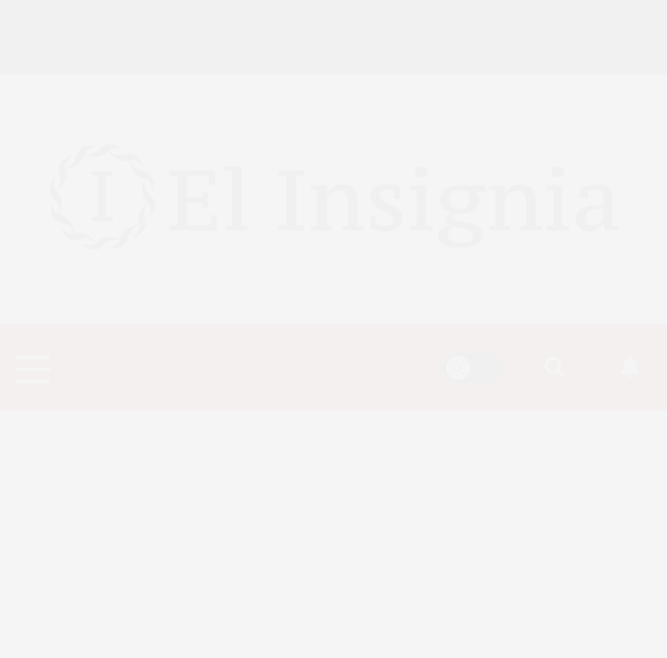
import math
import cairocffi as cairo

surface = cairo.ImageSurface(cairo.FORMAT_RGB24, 667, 658)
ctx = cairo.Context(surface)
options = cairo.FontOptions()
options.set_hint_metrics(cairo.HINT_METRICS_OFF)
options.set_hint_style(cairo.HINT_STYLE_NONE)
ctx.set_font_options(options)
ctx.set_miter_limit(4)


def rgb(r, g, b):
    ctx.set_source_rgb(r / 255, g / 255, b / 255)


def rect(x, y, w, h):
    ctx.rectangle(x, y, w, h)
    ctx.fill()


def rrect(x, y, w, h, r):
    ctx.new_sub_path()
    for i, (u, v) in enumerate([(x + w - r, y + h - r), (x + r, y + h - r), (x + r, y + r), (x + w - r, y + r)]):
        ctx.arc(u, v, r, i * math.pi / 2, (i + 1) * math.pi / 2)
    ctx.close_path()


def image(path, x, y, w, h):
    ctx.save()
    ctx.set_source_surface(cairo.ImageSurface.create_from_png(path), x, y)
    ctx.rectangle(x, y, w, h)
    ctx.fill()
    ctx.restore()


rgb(245, 245, 245)
ctx.paint()
rgb(241, 241, 241)
rect(0, 0, 667, 75)
image('image0.png', 49, 144, 570, 106)
rgb(244, 240, 240)
rect(0, 324, 667, 87)
rgb(245, 245, 245)
rect(15, 368, 35, 3)
rect(15, 356, 35, 3)
rect(15, 380, 35, 3)
rgb(241, 240, 240)
rrect(443, 353, 60, 30, 15)
ctx.fill()
rgb(245, 245, 245)
ctx.arc(458, 368, 12, 0, 2 * math.pi)
ctx.fill()
image('image1.png', 449, 359, 17, 18)
image('image2.png', 544, 357, 20, 20)
image('image3.png', 621, 356, 19, 22)
surface.write_to_png('render.png')
